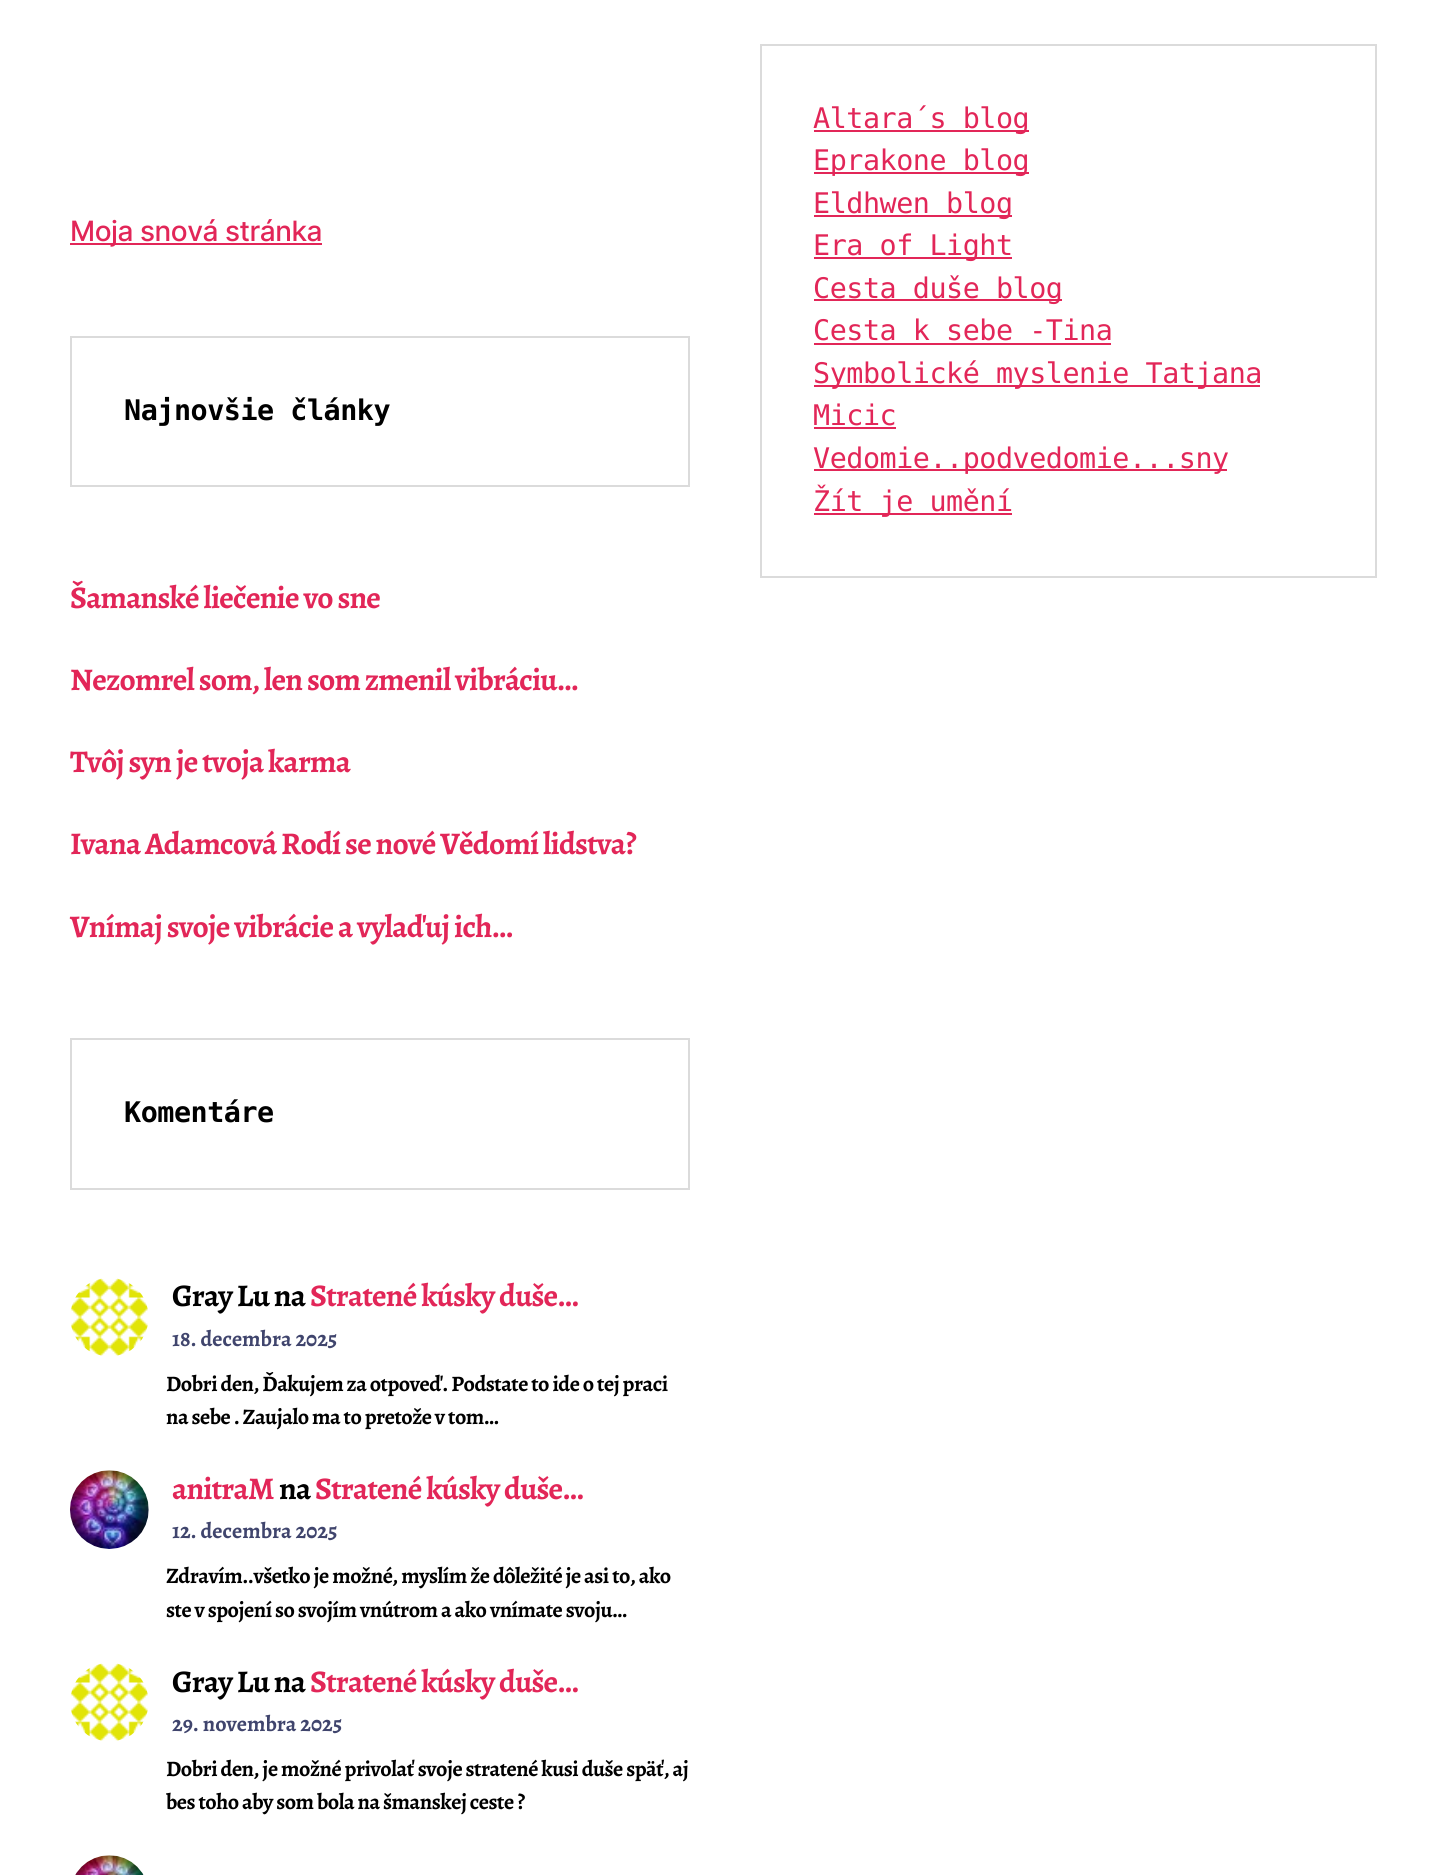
import math
import cairocffi as cairo

surface = cairo.ImageSurface(cairo.FORMAT_RGB24, 1447, 1875)
ctx = cairo.Context(surface)
options = cairo.FontOptions()
options.set_hint_metrics(cairo.HINT_METRICS_OFF)
options.set_hint_style(cairo.HINT_STYLE_NONE)
ctx.set_font_options(options)
ctx.set_miter_limit(4)


def rgb(r, g, b):
    ctx.set_source_rgb(r / 255, g / 255, b / 255)


def face(family, size, italic, bold):
    ctx.select_font_face(family, cairo.FONT_SLANT_ITALIC if italic else cairo.FONT_SLANT_NORMAL, cairo.FONT_WEIGHT_BOLD if bold else cairo.FONT_WEIGHT_NORMAL)
    ctx.set_font_size(size)


def label(x, y, s):
    ctx.move_to(x, y)
    ctx.show_text(s)


def tracked(x, y, s, letter, word):
    ctx.move_to(x, y)
    for ch in s:
        ctx.show_text(ch)
        ctx.rel_move_to(letter + word * (ch == ' '), 0)


def rect(x, y, w, h):
    ctx.rectangle(x, y, w, h)
    ctx.fill()


def image(path, x, y, w, h):
    ctx.save()
    ctx.set_source_surface(cairo.ImageSurface.create_from_png(path), x, y)
    ctx.rectangle(x, y, w, h)
    ctx.fill()
    ctx.restore()


rgb(255, 255, 255)
ctx.paint()
rgb(226, 38, 88)
rect(70, 243, 252, 2)
face('Inter Medium', 28, 0, 0)
tracked(70, 241, 'Moja snová stránka', -0.47, 0)
ctx.rectangle(71, 337, 618, 149)
rgb(219, 219, 219)
ctx.stroke()
face('DejaVu Sans Mono', 28.4, 0, 1)
rgb(0, 0, 0)
tracked(124, 420, 'Najnovšie články', -0.47, 0)
face('Alegreya', 31.5, 0, 1)
rgb(226, 38, 88)
tracked(70, 608, 'Šamanské liečenie vo sne', -0.8, 0)
tracked(70, 690, 'Nezomrel som, len som zmenil vibráciu…', -0.8, 0)
tracked(70, 772, 'Tvôj syn je tvoja karma', -0.8, 0)
tracked(70, 854, 'Ivana Adamcová Rodí se nové Vědomí lidstva?', -0.8, 0)
tracked(70, 937, 'Vnímaj svoje vibrácie a vylaďuj ich…', -0.8, 0)
ctx.rectangle(71, 1039, 618, 150)
rgb(219, 219, 219)
ctx.stroke()
face('DejaVu Sans Mono', 28.4, 0, 1)
rgb(0, 0, 0)
tracked(124, 1122, 'Komentáre', -0.47, 0)
image('image0.png', 70, 1278, 78, 78)
face('Alegreya', 31.5, 0, 1)
tracked(172, 1306, 'Gray Lu na', -0.8, 0)
rgb(226, 38, 88)
tracked(310, 1306, 'Stratené kúsky duše…', -0.8, 0)
face('Alegreya', 22.05, 0, 1)
rgb(64, 69, 109)
label(172, 1346, '18. decembra 2025')
rgb(0, 0, 0)
tracked(166, 1391, 'Dobri den, Ďakujem za otpoveď. Podstate to ide o tej praci', -0.47, 0)
tracked(166, 1424, 'na sebe . Zaujalo ma to pretože v tom…', -0.47, 0)
image('image1.png', 70, 1470, 79, 79)
face('Alegreya', 31.5, 0, 1)
rgb(226, 38, 88)
tracked(172, 1499, 'anitraM', -0.8, 0)
rgb(0, 0, 0)
tracked(279, 1499, 'na', -0.8, 0)
rgb(226, 38, 88)
tracked(315, 1499, 'Stratené kúsky duše…', -0.8, 0)
face('Alegreya', 22.05, 0, 1)
rgb(64, 69, 109)
label(172, 1538, '12. decembra 2025')
rgb(0, 0, 0)
tracked(166, 1583, 'Zdravím..všetko je možné, myslím že dôležité je asi to, ako', -0.47, 0)
tracked(166, 1617, 'ste v spojení so svojím vnútrom a ako vnímate svoju…', -0.47, 0)
image('image2.png', 70, 1663, 78, 78)
face('Alegreya', 31.5, 0, 1)
tracked(172, 1692, 'Gray Lu na', -0.8, 0)
rgb(226, 38, 88)
tracked(310, 1692, 'Stratené kúsky duše…', -0.8, 0)
face('Alegreya', 22.05, 0, 1)
rgb(64, 69, 109)
label(172, 1731, '29. novembra 2025')
rgb(0, 0, 0)
tracked(166, 1776, 'Dobri den, je možné privolať svoje stratené kusi duše späť, aj', -0.47, 0)
tracked(166, 1809, 'bes toho aby som bola na šmanskej ceste ?', -0.47, 0)
image('image3.png', 75, 1855, 69, 20)
ctx.rectangle(761, 45, 615, 532)
rgb(219, 219, 219)
ctx.stroke()
rgb(226, 38, 88)
rect(814, 130, 215, 2)
face('DejaVu Sans Mono', 28.4, 0, 0)
tracked(813, 128, 'Altara´s blog', -0.47, 0)
rect(814, 172, 215, 2)
tracked(813, 170, 'Eprakone blog', -0.47, 0)
rect(814, 215, 198, 2)
tracked(813, 213, 'Eldhwen blog', -0.47, 0)
rect(814, 257, 198, 2)
tracked(813, 255, 'Era of Light', -0.47, 0)
rect(814, 299, 248, 2)
tracked(813, 298, 'Cesta duše blog', -0.47, 0)
tracked(813, 340, 'Cesta k sebe -Tina', -0.47, 0)
rect(814, 343, 297, 2)
rect(814, 385, 446, 2)
tracked(813, 383, 'Symbolické myslenie Tatjana', -0.47, 0)
tracked(813, 425, 'Micic', -0.47, 0)
rect(814, 427, 82, 2)
rect(814, 469, 413, 2)
tracked(813, 468, 'Vedomie..podvedomie...sny', -0.47, 0)
rect(814, 513, 198, 2)
tracked(813, 511, 'Žít je umění', -0.47, 0)
surface.write_to_png('render.png')
